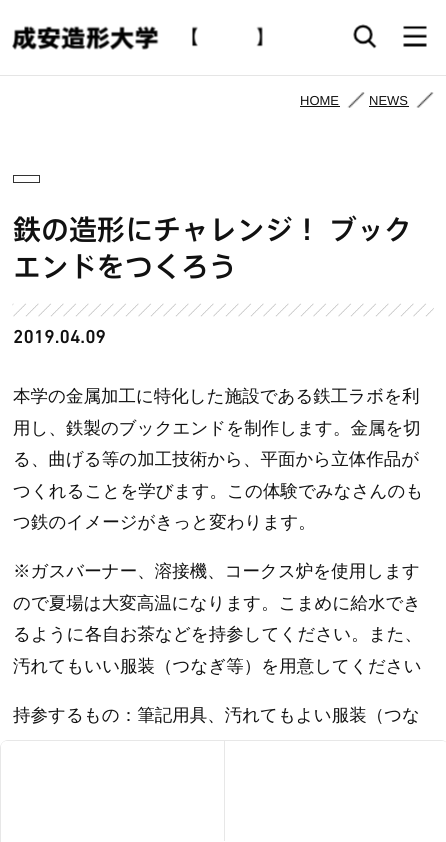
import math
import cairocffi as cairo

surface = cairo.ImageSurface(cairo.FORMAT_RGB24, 446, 842)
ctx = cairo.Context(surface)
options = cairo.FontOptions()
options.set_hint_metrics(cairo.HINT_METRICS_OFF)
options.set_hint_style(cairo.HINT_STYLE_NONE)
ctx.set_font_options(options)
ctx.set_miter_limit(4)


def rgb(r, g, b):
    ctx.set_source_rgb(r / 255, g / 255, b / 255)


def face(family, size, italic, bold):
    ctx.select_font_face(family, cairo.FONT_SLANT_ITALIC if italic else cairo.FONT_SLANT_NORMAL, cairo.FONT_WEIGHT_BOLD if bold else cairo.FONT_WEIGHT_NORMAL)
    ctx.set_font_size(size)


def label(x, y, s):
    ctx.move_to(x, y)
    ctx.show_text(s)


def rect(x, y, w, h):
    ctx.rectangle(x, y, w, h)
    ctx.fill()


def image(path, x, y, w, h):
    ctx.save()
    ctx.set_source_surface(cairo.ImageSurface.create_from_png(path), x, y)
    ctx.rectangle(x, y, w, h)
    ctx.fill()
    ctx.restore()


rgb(255, 255, 255)
ctx.paint()
rgb(229, 229, 229)
rect(0, 75, 446, 1)
image('image0.png', 12, 25, 251, 25)
image('image1.png', 353, 24, 24, 25)
image('image2.png', 403, 25, 24, 22)
face('Liberation Sans', 13, 0, 0)
rgb(17, 17, 17)
label(300, 105, 'HOME')
rect(300, 106, 40, 1)
image('image3.png', 347, 92, 18, 16)
label(369, 105, 'NEWS')
rect(369, 106, 40, 1)
image('image4.png', 416, 92, 18, 16)
ctx.rectangle(13.5, 175.5, 26, 7)
rgb(51, 51, 51)
ctx.set_line_width(1)
ctx.stroke()
image('image5.png', 12, 303, 422, 14)
face('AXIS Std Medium', 28, 0, 0)
rgb(17, 17, 17)
label(13, 240, '鉄の造形にチャレンジ！ ブック')
label(13, 277, 'エンドをつくろう')
face('DIN Next Medium', 19, 0, 0)
label(13, 343, '2019.04.09')
face('WenQuanYi Zen Hei Medium', 17.5, 0, 0)
label(13, 402, '本学の金属加工に特化した施設である鉄工ラボを利')
label(13, 434, '用し、鉄製のブックエンドを制作します。金属を切')
label(13, 465, 'る、曲げる等の加工技術から、平面から立体作品が')
label(13, 497, 'つくれることを学びます。この体験でみなさんのも')
label(13, 528, 'つ鉄のイメージがきっと変わります。')
label(13, 577, '※ガスバーナー、溶接機、コークス炉を使用します')
label(13, 609, 'ので夏場は大変高温になります。こまめに給水でき')
label(13, 640, 'るように各自お茶などを持参してください。また、')
label(13, 672, '汚れてもいい服装（つなぎ等）を用意してください')
label(13, 721, '持参するもの：筆記用具、汚れてもよい服装（つな')
ctx.new_path()
ctx.move_to(8, 740.5)
ctx.line_to(441, 740.5)
ctx.curve_to(445, 740.5, 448.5, 744, 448.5, 748)
ctx.line_to(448.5, 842.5)
ctx.line_to(0.5, 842.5)
ctx.line_to(0.5, 748)
ctx.curve_to(0.5, 744, 4, 740.5, 8, 740.5)
ctx.close_path()
rgb(231, 231, 231)
ctx.stroke()
rect(224, 741, 1, 100)
rgb(255, 255, 255)
ctx.new_path()
ctx.move_to(7, 741)
ctx.line_to(224, 741)
ctx.line_to(224, 841)
ctx.line_to(1, 841)
ctx.line_to(1, 747)
ctx.curve_to(1, 743.5, 3.5, 741, 7, 741)
ctx.close_path()
ctx.fill()
ctx.new_path()
ctx.move_to(225, 741)
ctx.line_to(442, 741)
ctx.curve_to(445.5, 741, 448, 743.5, 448, 747)
ctx.line_to(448, 841)
ctx.line_to(225, 841)
ctx.close_path()
ctx.fill()
surface.write_to_png('render.png')
